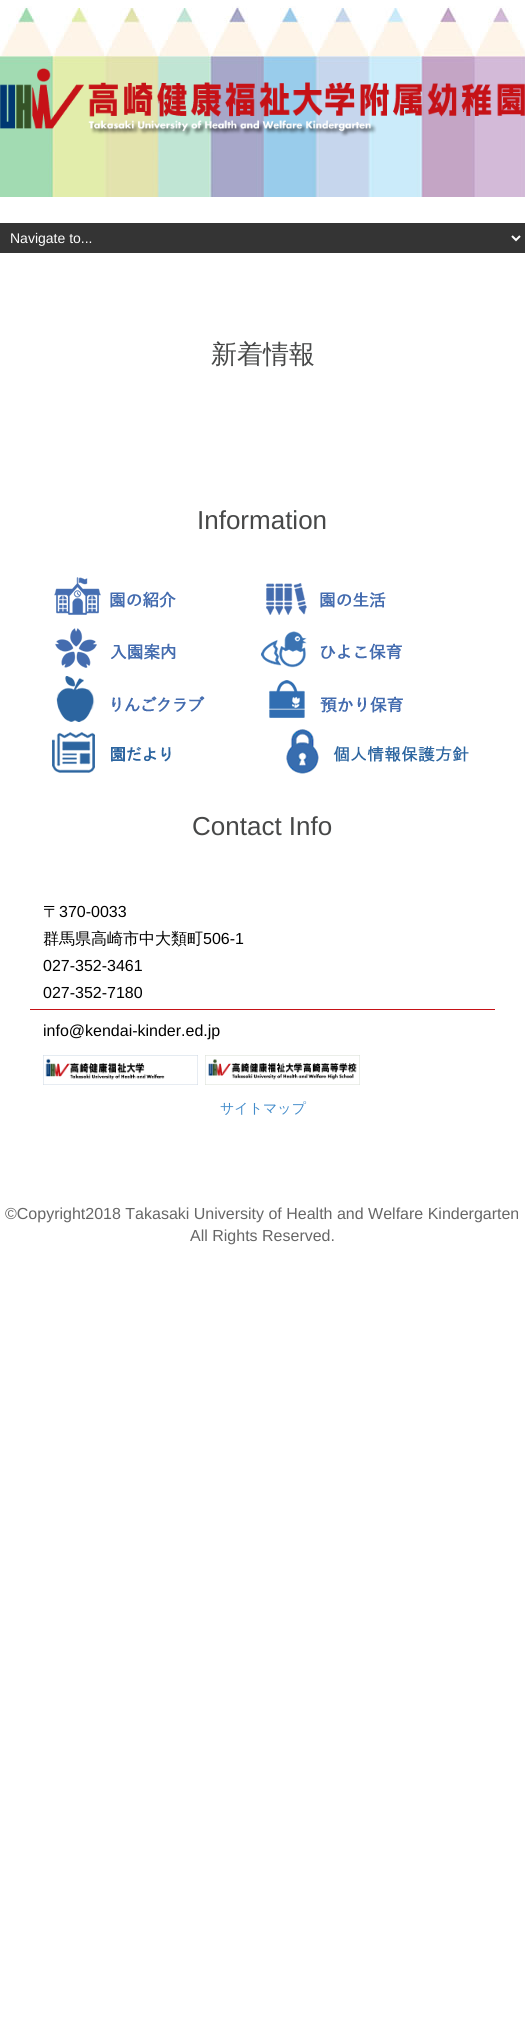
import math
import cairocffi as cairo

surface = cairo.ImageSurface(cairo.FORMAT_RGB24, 525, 2036)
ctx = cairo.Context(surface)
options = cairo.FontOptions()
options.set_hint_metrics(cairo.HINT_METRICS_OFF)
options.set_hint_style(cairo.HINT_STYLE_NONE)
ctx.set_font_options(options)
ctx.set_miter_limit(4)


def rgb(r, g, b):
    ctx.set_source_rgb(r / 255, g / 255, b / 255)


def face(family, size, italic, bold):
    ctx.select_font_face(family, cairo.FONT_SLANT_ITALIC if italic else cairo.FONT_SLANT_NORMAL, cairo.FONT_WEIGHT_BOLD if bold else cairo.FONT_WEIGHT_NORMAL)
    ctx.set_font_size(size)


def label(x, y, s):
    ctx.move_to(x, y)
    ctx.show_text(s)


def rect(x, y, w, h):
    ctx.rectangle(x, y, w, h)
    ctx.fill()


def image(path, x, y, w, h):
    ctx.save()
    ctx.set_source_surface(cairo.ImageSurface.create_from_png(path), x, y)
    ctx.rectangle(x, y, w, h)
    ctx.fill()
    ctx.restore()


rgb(255, 255, 255)
ctx.paint()
image('image0.png', 0, 6, 525, 191)
image('image1.png', 0, 68, 525, 69)
rgb(52, 52, 52)
rect(0, 223, 525, 30)
ctx.new_path()
ctx.move_to(512, 236)
ctx.line_to(516, 240)
ctx.line_to(520, 236)
rgb(255, 255, 255)
ctx.stroke()
face('Liberation Sans', 14, 0, 0)
label(10, 243, 'Navigate to...')
face('WenQuanYi Zen Hei Medium', 26, 0, 0)
rgb(71, 72, 72)
label(211, 363, '新着情報')
face('Liberation Sans', 26, 0, 0)
label(197, 529, 'Information')
image('image2.png', 54, 577, 122, 38)
image('image3.png', 266, 583, 120, 32)
image('image4.png', 55, 628, 121, 40)
image('image5.png', 261, 631, 141, 37)
image('image6.png', 56, 676, 149, 46)
image('image7.png', 269, 680, 134, 38)
image('image8.png', 52, 732, 119, 41)
image('image9.png', 286, 729, 183, 45)
label(192, 835, 'Contact Info')
face('WenQuanYi Zen Hei Medium', 16, 0, 0)
rgb(0, 0, 0)
label(43, 917, '〒')
face('Liberation Sans', 16, 0, 0)
label(59, 917, '370-0033')
face('WenQuanYi Zen Hei Medium', 16, 0, 0)
label(43, 944, '群馬県高崎市中大類町')
face('Liberation Sans', 16, 0, 0)
label(203, 944, '506-1')
label(43, 971, '027-352-3461')
label(43, 998, '027-352-7180')
rgb(198, 18, 23)
rect(30, 1009, 465, 1)
rgb(0, 0, 0)
label(43, 1036, 'info@kendai-kinder.ed.jp')
image('image10.png', 43, 1055, 155, 30)
image('image11.png', 205, 1055, 155, 30)
face('WenQuanYi Zen Hei Medium', 14, 0, 0)
rgb(66, 139, 202)
label(220, 1113, 'サイトマップ')
face('Liberation Sans', 16, 0, 0)
rgb(102, 102, 102)
label(5, 1219, '©Copyright2018 Takasaki University of Health and Welfare Kindergarten')
label(190, 1241, 'All Rights Reserved.')
surface.write_to_png('render.png')
